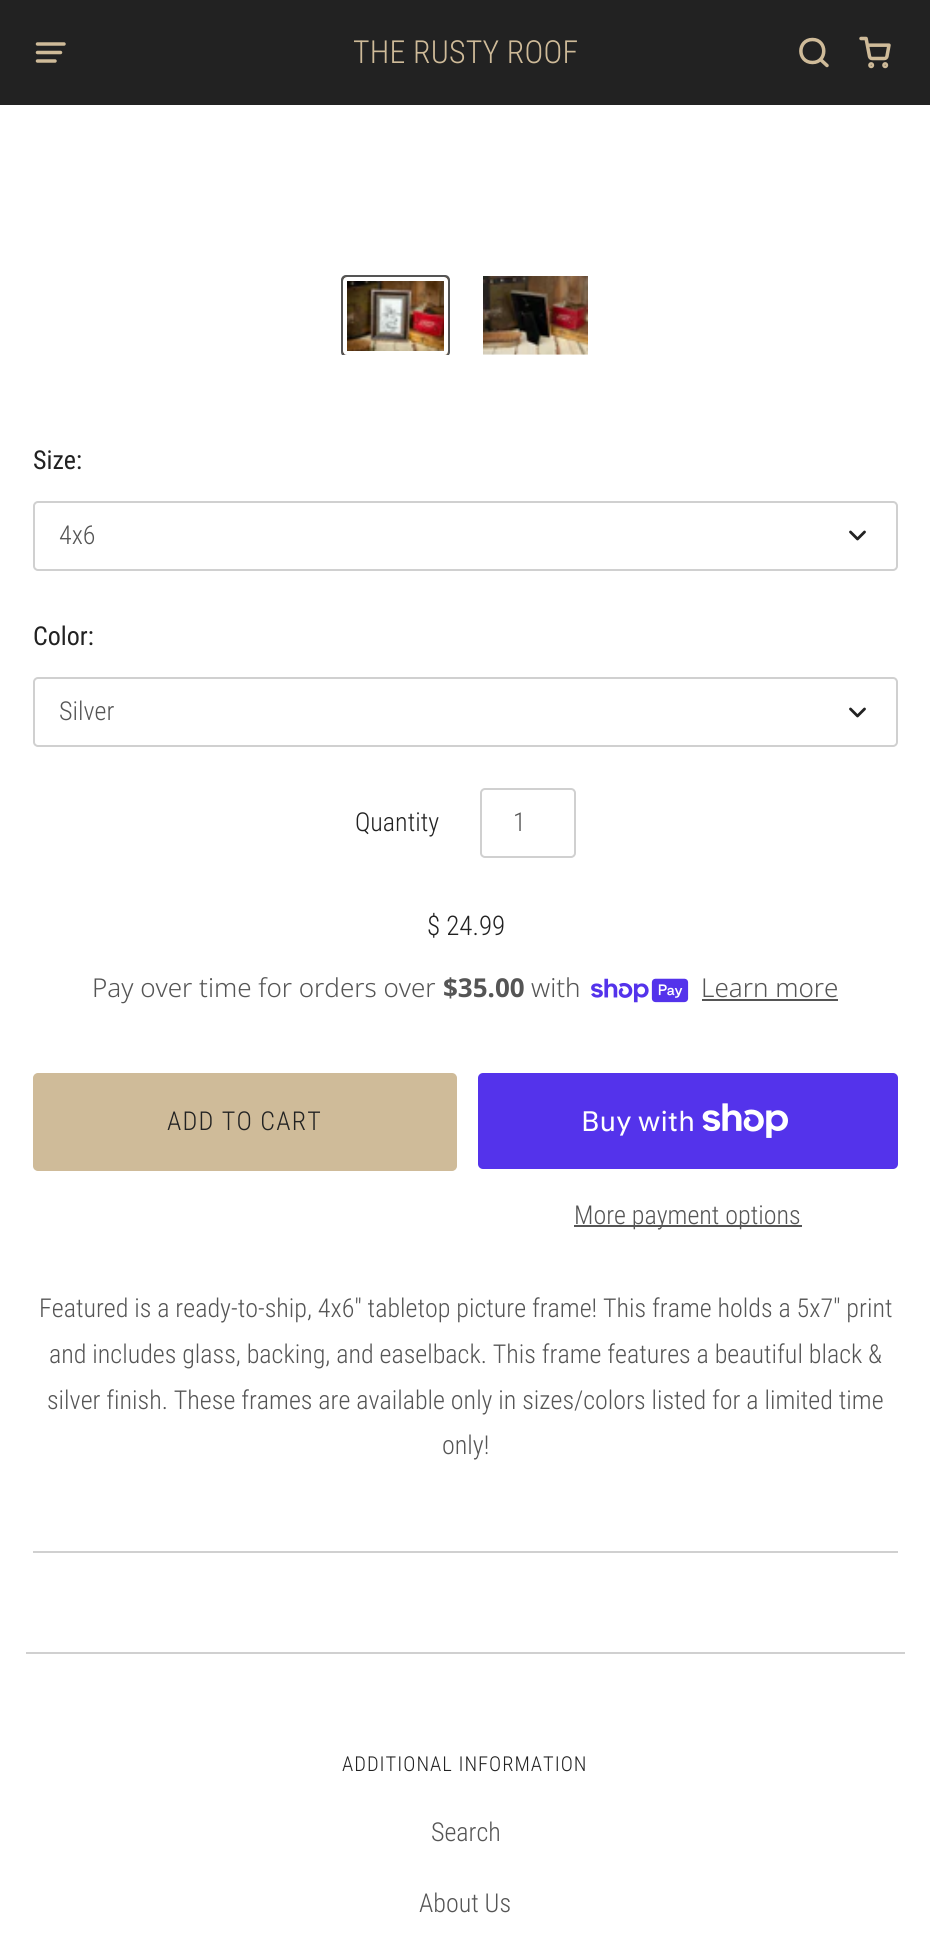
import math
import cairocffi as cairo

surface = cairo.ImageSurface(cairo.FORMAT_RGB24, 930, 1943)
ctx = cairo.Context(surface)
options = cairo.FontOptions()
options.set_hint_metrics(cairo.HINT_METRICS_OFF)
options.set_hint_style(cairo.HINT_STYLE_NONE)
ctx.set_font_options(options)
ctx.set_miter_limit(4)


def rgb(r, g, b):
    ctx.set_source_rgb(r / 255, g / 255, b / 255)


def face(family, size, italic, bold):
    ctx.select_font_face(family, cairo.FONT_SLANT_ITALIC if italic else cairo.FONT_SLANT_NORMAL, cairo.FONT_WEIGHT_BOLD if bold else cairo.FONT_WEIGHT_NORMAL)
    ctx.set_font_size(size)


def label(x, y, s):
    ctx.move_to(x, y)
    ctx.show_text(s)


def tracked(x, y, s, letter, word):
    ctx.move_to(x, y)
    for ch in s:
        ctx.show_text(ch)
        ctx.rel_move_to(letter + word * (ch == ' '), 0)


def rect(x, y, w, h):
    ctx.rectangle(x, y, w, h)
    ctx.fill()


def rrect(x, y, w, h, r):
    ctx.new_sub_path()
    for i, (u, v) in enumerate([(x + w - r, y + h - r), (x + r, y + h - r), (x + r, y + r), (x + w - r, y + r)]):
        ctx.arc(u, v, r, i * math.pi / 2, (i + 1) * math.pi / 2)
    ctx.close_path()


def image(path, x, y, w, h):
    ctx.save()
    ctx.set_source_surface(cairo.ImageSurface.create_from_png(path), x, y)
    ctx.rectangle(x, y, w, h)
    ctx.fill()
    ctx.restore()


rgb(255, 255, 255)
ctx.paint()
rgb(34, 34, 34)
rect(0, 0, 930, 105)
ctx.new_path()
ctx.move_to(37.5, 44)
ctx.line_to(64, 44)
ctx.move_to(37.5, 52.5)
ctx.line_to(60.5, 52.5)
ctx.move_to(37.5, 61)
ctx.line_to(55, 61)
rgb(207, 187, 153)
ctx.set_line_width(3.5)
ctx.set_line_cap(cairo.LINE_CAP_ROUND)
ctx.set_line_join(cairo.LINE_JOIN_ROUND)
ctx.stroke()
face('Roboto Condensed Light', 31.75, 0, 0)
tracked(353, 63, 'THE RUSTY ROOF', 0.25, 0)
ctx.new_path()
ctx.move_to(812.5, 39.5)
ctx.curve_to(797, 39.5, 797, 62.5, 812.5, 62.5)
ctx.curve_to(827.5, 62.5, 827.5, 39.5, 812.5, 39.5)
ctx.close_path()
ctx.move_to(827, 65.5)
ctx.line_to(820.5, 59.5)
ctx.close_path()
ctx.stroke()
image('image0.png', 859, 36, 32, 33)
image('image1.png', 343, 277, 105, 78)
ctx.save()
ctx.rectangle(33, 210, 865, 145)
ctx.clip()
rrect(342, 276, 107, 80, 4)
rgb(85, 85, 85)
ctx.set_line_width(2)
ctx.set_line_cap(cairo.LINE_CAP_BUTT)
ctx.set_line_join(cairo.LINE_JOIN_MITER)
ctx.stroke()
ctx.restore()
rrect(345, 279, 101, 74, 2)
rgb(255, 255, 255)
ctx.set_line_width(4)
ctx.set_line_cap(cairo.LINE_CAP_BUTT)
ctx.set_line_join(cairo.LINE_JOIN_MITER)
ctx.stroke()
image('image2.png', 483, 276, 105, 79)
face('Roboto Condensed', 26, 0, 0)
rgb(34, 34, 34)
label(33, 469, 'Size:')
rrect(34, 502, 863, 68, 4)
rgb(208, 208, 208)
ctx.set_line_width(2)
ctx.stroke()
face('Roboto Condensed Light', 26, 0, 0)
rgb(85, 85, 85)
label(59, 544, '4x6')
ctx.new_path()
ctx.move_to(850.5, 532)
ctx.line_to(857.5, 539)
ctx.line_to(864.5, 532)
rgb(34, 34, 34)
ctx.set_line_width(2.8)
ctx.set_line_cap(cairo.LINE_CAP_ROUND)
ctx.set_line_join(cairo.LINE_JOIN_ROUND)
ctx.stroke()
face('Roboto Condensed', 26, 0, 0)
label(33, 645, 'Color:')
rrect(34, 678, 863, 68, 4)
rgb(208, 208, 208)
ctx.set_line_width(2)
ctx.set_line_cap(cairo.LINE_CAP_BUTT)
ctx.set_line_join(cairo.LINE_JOIN_MITER)
ctx.stroke()
face('Roboto Condensed Light', 26, 0, 0)
rgb(85, 85, 85)
label(59, 720, 'Silver')
ctx.new_path()
ctx.move_to(850.5, 709)
ctx.line_to(857.5, 716)
ctx.line_to(864.5, 709)
rgb(34, 34, 34)
ctx.set_line_width(2.8)
ctx.set_line_cap(cairo.LINE_CAP_ROUND)
ctx.set_line_join(cairo.LINE_JOIN_ROUND)
ctx.stroke()
label(355, 831, 'Quantity')
rrect(481, 789, 94, 68, 4)
rgb(208, 208, 208)
ctx.set_line_width(2)
ctx.set_line_cap(cairo.LINE_CAP_BUTT)
ctx.set_line_join(cairo.LINE_JOIN_MITER)
ctx.stroke()
rgb(85, 85, 85)
label(513, 831, '1')
face('Roboto Condensed Light', 27, 0, 0)
rgb(34, 34, 34)
label(427, 935, '$ 24.99')
face('Noto Sans Light', 26, 0, 0)
rgb(85, 85, 85)
label(92, 997, 'Pay over time for orders over')
face('Noto Sans', 26, 0, 1)
label(443, 997, '$35.00')
face('Noto Sans Light', 26, 0, 0)
label(531, 997, 'with')
image('image3.png', 591, 978, 98, 25)
label(701, 997, 'Learn more')
rect(702, 999, 136, 2)
rgb(207, 187, 153)
rrect(34, 1074, 422, 96, 4)
ctx.fill_preserve()
ctx.stroke()
face('Roboto Condensed Light', 26, 0, 0)
rgb(34, 34, 34)
tracked(167, 1130, 'ADD TO CART', 1.25, 0)
rgb(84, 51, 235)
rrect(478, 1073, 420, 96, 5)
ctx.fill()
face('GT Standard', 28, 0, 0)
rgb(255, 255, 255)
label(581, 1131, 'Buy with')
image('image4.png', 702, 1103, 86, 35)
rgb(85, 85, 85)
rect(574, 1225, 228, 2)
face('Roboto Condensed Light', 26, 0, 0)
label(574, 1224, 'More payment options')
label(39, 1317, 'Featured is a ready-to-ship, 4x6" tabletop picture frame! This frame holds a 5x7" print')
label(49, 1363, 'and includes glass, backing, and easelback. This frame features a beautiful black &')
label(47, 1409, 'silver finish. These frames are available only in sizes/colors listed for a limited time')
label(442, 1454, 'only!')
rgb(208, 208, 208)
rect(33, 1551, 865, 2)
rect(26, 1652, 879, 2)
face('Roboto Condensed Light', 20.5, 0, 0)
rgb(34, 34, 34)
tracked(342, 1771, 'ADDITIONAL INFORMATION', 1, 0)
face('Roboto Condensed Light', 26, 0, 0)
rgb(85, 85, 85)
label(431, 1841, 'Search')
label(419, 1912, 'About Us')
surface.write_to_png('render.png')
